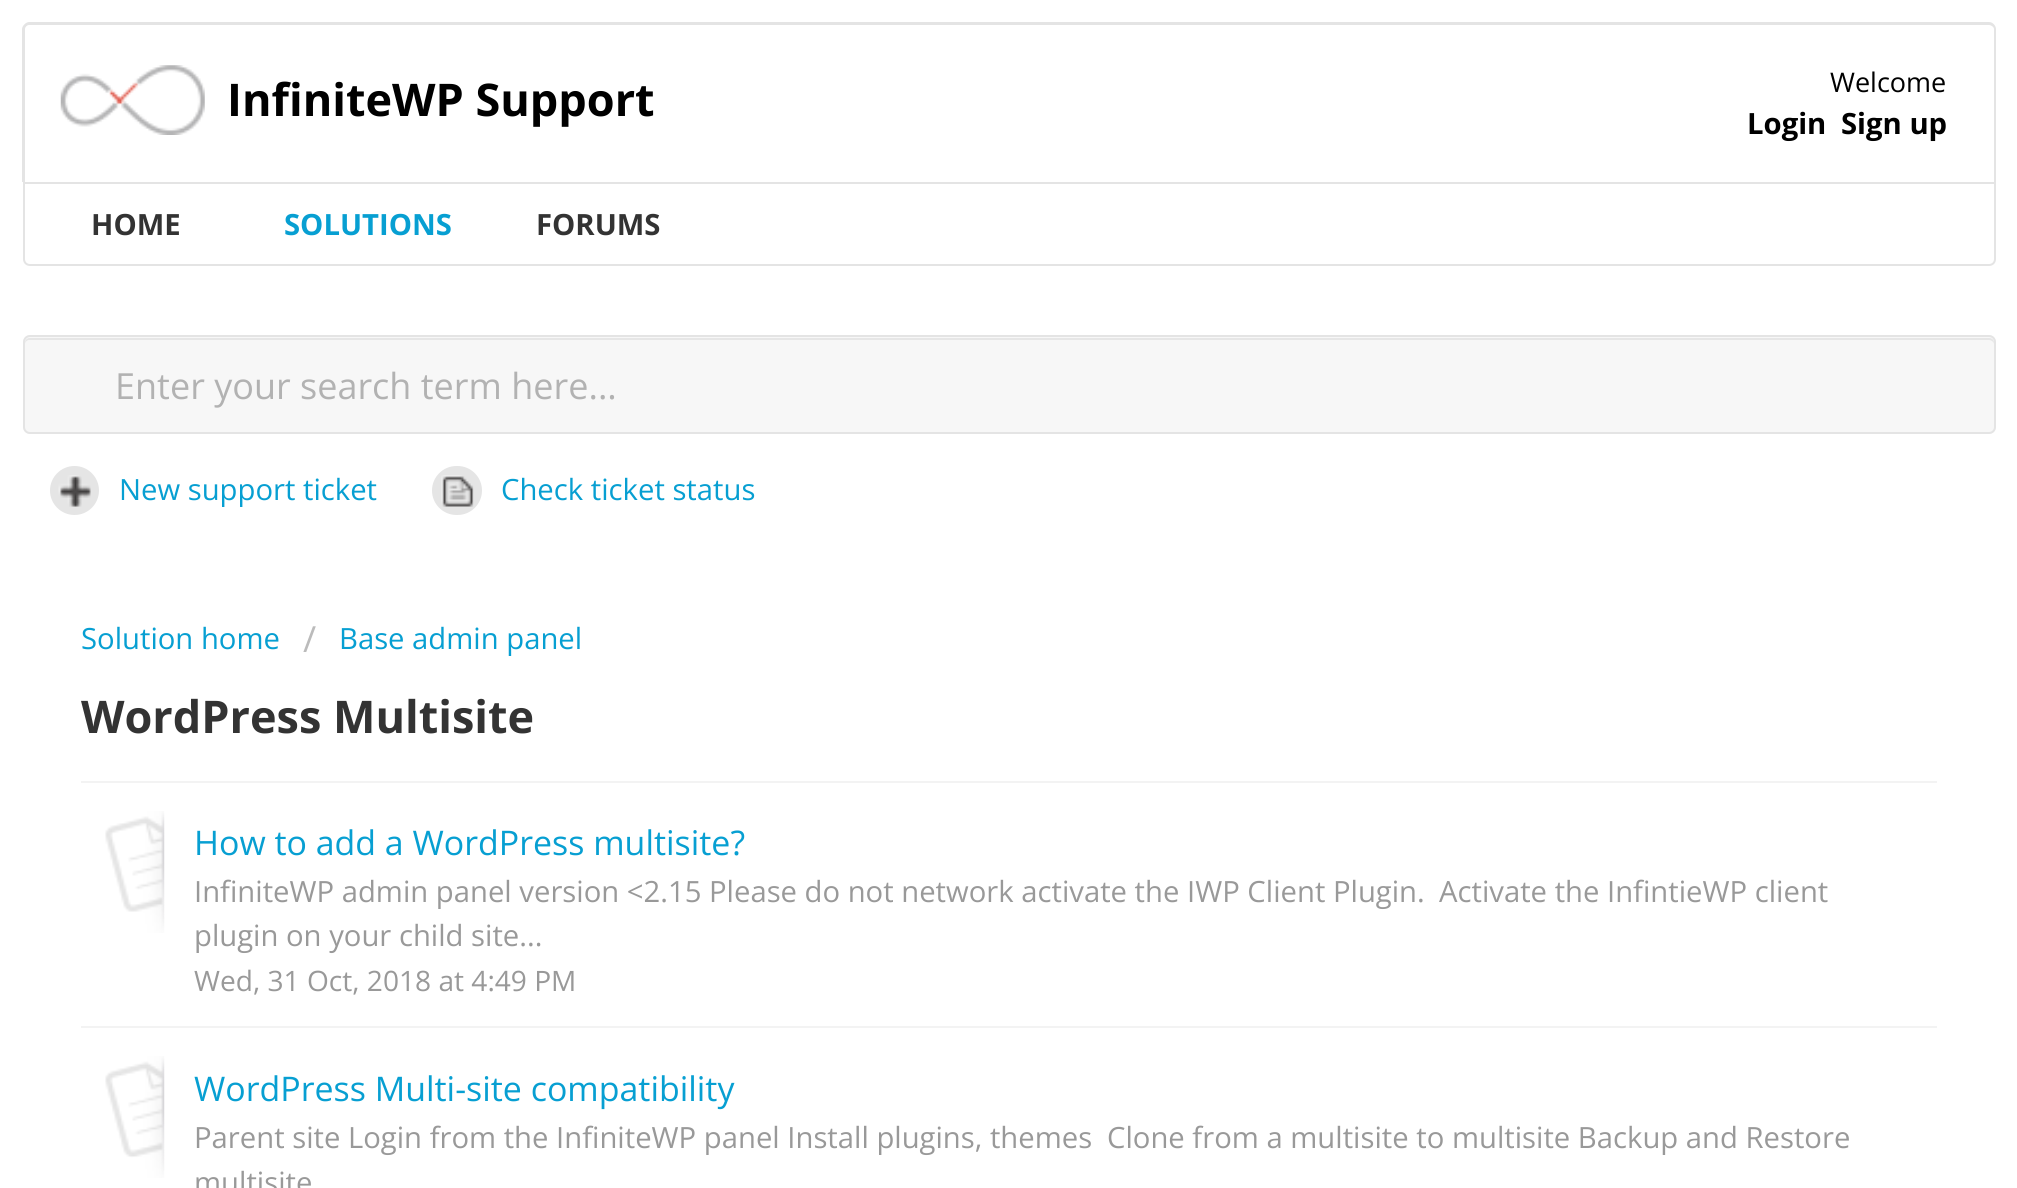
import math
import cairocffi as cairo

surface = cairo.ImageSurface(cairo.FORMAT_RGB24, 2017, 1188)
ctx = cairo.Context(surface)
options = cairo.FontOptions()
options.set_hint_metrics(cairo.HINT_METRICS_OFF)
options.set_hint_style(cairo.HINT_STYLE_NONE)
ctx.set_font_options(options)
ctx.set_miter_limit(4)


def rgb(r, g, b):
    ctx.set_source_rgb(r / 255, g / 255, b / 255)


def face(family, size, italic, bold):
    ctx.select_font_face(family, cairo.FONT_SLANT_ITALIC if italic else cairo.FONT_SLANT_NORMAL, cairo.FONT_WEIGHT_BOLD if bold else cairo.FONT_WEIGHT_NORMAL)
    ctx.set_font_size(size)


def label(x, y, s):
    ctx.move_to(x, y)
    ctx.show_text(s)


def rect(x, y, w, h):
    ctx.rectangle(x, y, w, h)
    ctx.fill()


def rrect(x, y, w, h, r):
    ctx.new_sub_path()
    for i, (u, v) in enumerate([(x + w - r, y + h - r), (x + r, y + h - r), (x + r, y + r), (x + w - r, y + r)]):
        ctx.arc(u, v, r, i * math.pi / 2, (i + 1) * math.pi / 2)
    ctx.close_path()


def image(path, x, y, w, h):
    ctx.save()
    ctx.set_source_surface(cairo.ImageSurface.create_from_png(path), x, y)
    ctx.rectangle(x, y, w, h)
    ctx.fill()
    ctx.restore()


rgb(255, 255, 255)
ctx.paint()
rgb(228, 228, 228)
ctx.set_fill_rule(cairo.FILL_RULE_EVEN_ODD)
ctx.new_path()
ctx.move_to(29, 22)
ctx.line_to(1989, 22)
ctx.curve_to(1993, 22, 1996, 26, 1996, 29)
ctx.line_to(1996, 182)
ctx.line_to(22, 182)
ctx.line_to(22, 29)
ctx.curve_to(22, 26, 26, 22, 29, 22)
ctx.close_path()
ctx.move_to(29, 25)
ctx.line_to(1989, 25)
ctx.curve_to(1991, 25, 1994, 27, 1994, 29)
ctx.line_to(1994, 182)
ctx.line_to(25, 182)
ctx.line_to(25, 29)
ctx.curve_to(25, 27, 27, 25, 29, 25)
ctx.close_path()
ctx.fill()
image('image0.png', 60, 65, 145, 70)
face('Open Sans', 45, 0, 1)
rgb(0, 0, 0)
label(227, 116, 'InfiniteWP Support')
face('Open Sans', 27, 0, 0)
label(1830, 92, 'Welcome')
face('Open Sans', 29.25, 0, 1)
label(1747, 134, 'Login')
label(1841, 134, 'Sign up')
ctx.new_path()
ctx.move_to(24, 183)
ctx.line_to(1995, 183)
ctx.line_to(1995, 259)
ctx.curve_to(1995, 262.5, 1992.5, 265, 1989, 265)
ctx.line_to(30, 265)
ctx.curve_to(26.5, 265, 24, 262.5, 24, 259)
ctx.close_path()
rgb(228, 228, 228)
ctx.stroke()
rgb(51, 51, 51)
label(91, 235, 'HOME')
rgb(7, 159, 210)
label(284, 235, 'SOLUTIONS')
rgb(51, 51, 51)
label(536, 235, 'FORUMS')
rgb(247, 247, 247)
rrect(23, 335, 1973, 99, 7)
ctx.fill()
rgb(230, 230, 230)
ctx.set_fill_rule(cairo.FILL_RULE_WINDING)
ctx.new_path()
ctx.move_to(29, 340)
ctx.line_to(1989, 340)
ctx.curve_to(1991, 340, 1994, 342, 1994, 344)
ctx.line_to(1994, 343)
ctx.curve_to(1994, 340, 1992, 338, 1989, 338)
ctx.line_to(30, 338)
ctx.curve_to(27, 338, 25, 340, 25, 343)
ctx.line_to(25, 344)
ctx.curve_to(25, 342, 27, 340, 29, 340)
ctx.close_path()
ctx.fill()
rrect(24, 336, 1971, 97, 6)
rgb(228, 228, 228)
ctx.stroke()
face('Open Sans', 36, 0, 0)
rgb(178, 178, 178)
label(115, 399, 'Enter your search term here...')
rgb(229, 229, 229)
ctx.new_path()
ctx.arc(74.5, 490.5, 24.5, 0, 2 * math.pi)
ctx.fill()
image('image1.png', 58, 475, 33, 32)
face('Open Sans', 29.25, 0, 0)
rgb(7, 159, 210)
label(119, 500, 'New support ticket')
rgb(229, 229, 229)
rrect(432, 466, 50, 49, 24.5)
ctx.fill()
image('image2.png', 441, 475, 33, 32)
rgb(7, 159, 210)
label(501, 500, 'Check ticket status')
label(81, 649, 'Solution home')
face('Open Sans', 36, 0, 0)
rgb(187, 187, 187)
label(303, 652, '/')
face('Open Sans', 29.25, 0, 0)
rgb(7, 159, 210)
label(339, 649, 'Base admin panel')
face('Open Sans', 45, 0, 1)
rgb(51, 51, 51)
label(81, 733, 'WordPress Multisite')
rgb(243, 243, 243)
rect(81, 781, 1856, 2)
image('image3.png', 105, 811, 60, 122)
face('Open Sans', 33.9, 0, 0)
rgb(7, 159, 210)
label(194, 855, 'How to add a WordPress multisite?')
face('Open Sans', 29.25, 0, 0)
rgb(153, 153, 153)
label(194, 902, 'InfiniteWP admin panel version <2.15 Please do not network activate the IWP Client Plugin.')
label(1439, 902, 'Activate the InfintieWP client')
label(194, 946, 'plugin on your child site...')
face('Open Sans', 28.1, 0, 0)
label(194, 991, 'Wed, 31 Oct, 2018 at 4:49 PM')
rgb(243, 243, 243)
rect(81, 1026, 1856, 2)
image('image4.png', 105, 1056, 60, 122)
face('Open Sans', 33.9, 0, 0)
rgb(7, 159, 210)
label(194, 1101, 'WordPress Multi-site compatibility')
face('Open Sans', 29.25, 0, 0)
rgb(153, 153, 153)
label(194, 1148, 'Parent site Login from the InfiniteWP panel Install plugins, themes')
label(1107, 1148, 'Clone from a multisite to multisite Backup and Restore')
label(194, 1193, 'multisite')
surface.write_to_png('render.png')
